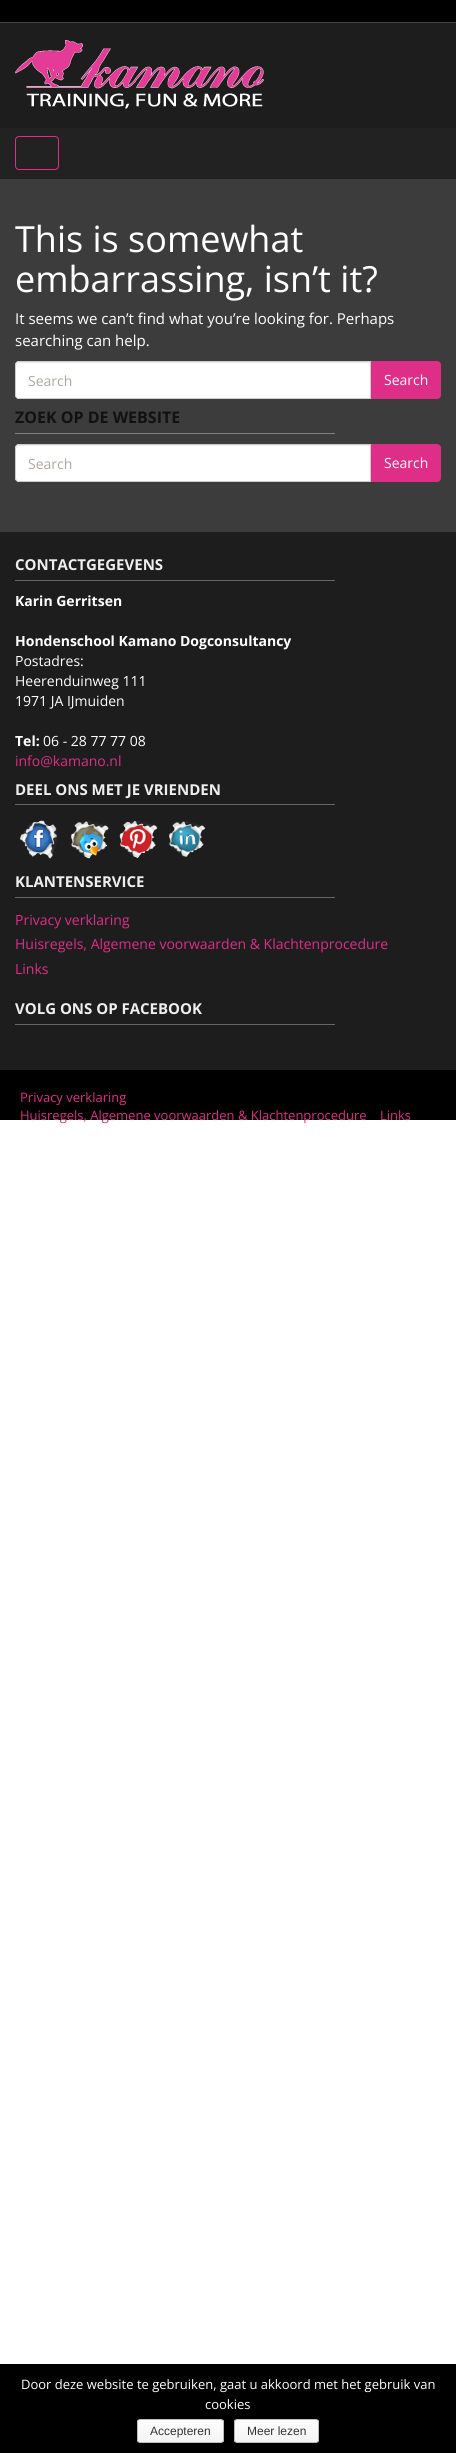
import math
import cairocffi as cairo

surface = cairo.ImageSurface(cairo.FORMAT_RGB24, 456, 2453)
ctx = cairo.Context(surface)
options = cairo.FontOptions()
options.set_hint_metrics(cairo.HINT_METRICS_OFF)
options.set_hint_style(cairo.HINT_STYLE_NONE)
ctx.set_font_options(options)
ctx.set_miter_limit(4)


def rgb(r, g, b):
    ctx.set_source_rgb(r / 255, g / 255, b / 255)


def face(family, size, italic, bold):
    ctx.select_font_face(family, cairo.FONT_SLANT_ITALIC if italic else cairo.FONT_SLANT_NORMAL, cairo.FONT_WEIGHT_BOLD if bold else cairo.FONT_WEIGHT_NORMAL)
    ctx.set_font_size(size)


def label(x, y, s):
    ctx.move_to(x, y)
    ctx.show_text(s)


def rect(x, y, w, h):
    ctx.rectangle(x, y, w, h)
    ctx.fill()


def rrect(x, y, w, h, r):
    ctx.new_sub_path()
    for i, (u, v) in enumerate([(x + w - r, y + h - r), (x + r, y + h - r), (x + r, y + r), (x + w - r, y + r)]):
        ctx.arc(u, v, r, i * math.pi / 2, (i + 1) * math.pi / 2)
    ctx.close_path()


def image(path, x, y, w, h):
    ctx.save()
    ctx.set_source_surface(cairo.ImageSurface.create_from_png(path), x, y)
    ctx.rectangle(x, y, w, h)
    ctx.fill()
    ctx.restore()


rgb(255, 255, 255)
ctx.paint()
rgb(60, 60, 60)
rect(0, 179, 456, 353)
rgb(29, 29, 29)
rect(0, 23, 456, 105)
rgb(0, 0, 0)
rect(0, 0, 456, 22)
rgb(68, 68, 68)
rect(0, 22, 456, 1)
image('image0.png', 15, 40, 249, 69)
rgb(34, 34, 34)
rect(0, 128, 456, 51)
rrect(15.5, 136.5, 43, 33, 3.5)
rgb(222, 46, 135)
ctx.set_line_width(1)
ctx.stroke()
face('Open Sans', 36, 0, 0)
rgb(255, 255, 255)
label(15, 252, 'This is somewhat')
label(15, 292, 'embarrassing, isn’t it?')
face('Open Sans', 15, 0, 0)
label(15, 324, 'It seems we can’t find what you’re looking for. Perhaps')
label(15, 346, 'searching can help.')
ctx.new_path()
ctx.move_to(19, 361)
ctx.line_to(371, 361)
ctx.line_to(371, 399)
ctx.line_to(19, 399)
ctx.curve_to(17, 399, 15, 397, 15, 395)
ctx.line_to(15, 365)
ctx.curve_to(15, 363, 17, 361, 19, 361)
ctx.close_path()
ctx.fill()
rgb(236, 236, 236)
ctx.new_path()
ctx.move_to(19, 363)
ctx.line_to(370, 363)
ctx.line_to(370, 362)
ctx.line_to(19, 362)
ctx.curve_to(17, 362, 16, 363, 16, 365)
ctx.line_to(16, 366)
ctx.curve_to(16, 364, 17, 363, 19, 363)
ctx.close_path()
ctx.fill()
ctx.new_path()
ctx.move_to(19, 361.5)
ctx.line_to(370.5, 361.5)
ctx.line_to(370.5, 398.5)
ctx.line_to(19, 398.5)
ctx.curve_to(17, 398.5, 15.5, 397, 15.5, 395)
ctx.line_to(15.5, 365)
ctx.curve_to(15.5, 363, 17, 361.5, 19, 361.5)
ctx.close_path()
rgb(204, 204, 204)
ctx.stroke()
face('Open Sans', 14, 0, 0)
rgb(174, 167, 159)
label(28, 386, 'Search')
rgb(222, 46, 135)
ctx.new_path()
ctx.move_to(371.5, 361.5)
ctx.line_to(437, 361.5)
ctx.curve_to(439, 361.5, 440.5, 363, 440.5, 365)
ctx.line_to(440.5, 395)
ctx.curve_to(440.5, 397, 439, 398.5, 437, 398.5)
ctx.line_to(371.5, 398.5)
ctx.close_path()
ctx.fill_preserve()
ctx.stroke()
rgb(255, 255, 255)
label(384, 385, 'Search')
face('Open Sans', 16, 0, 1)
rgb(17, 17, 17)
label(15, 423, 'ZOEK OP DE WEBSITE')
rgb(128, 128, 128)
rect(15, 433, 320, 1)
rgb(255, 255, 255)
ctx.new_path()
ctx.move_to(19, 444)
ctx.line_to(371, 444)
ctx.line_to(371, 482)
ctx.line_to(19, 482)
ctx.curve_to(17, 482, 15, 480, 15, 478)
ctx.line_to(15, 448)
ctx.curve_to(15, 446, 17, 444, 19, 444)
ctx.close_path()
ctx.fill()
rgb(236, 236, 236)
ctx.new_path()
ctx.move_to(19, 446)
ctx.line_to(370, 446)
ctx.line_to(370, 445)
ctx.line_to(19, 445)
ctx.curve_to(17, 445, 16, 446, 16, 448)
ctx.line_to(16, 449)
ctx.curve_to(16, 447, 17, 446, 19, 446)
ctx.close_path()
ctx.fill()
ctx.new_path()
ctx.move_to(19, 444.5)
ctx.line_to(370.5, 444.5)
ctx.line_to(370.5, 481.5)
ctx.line_to(19, 481.5)
ctx.curve_to(17, 481.5, 15.5, 480, 15.5, 478)
ctx.line_to(15.5, 448)
ctx.curve_to(15.5, 446, 17, 444.5, 19, 444.5)
ctx.close_path()
rgb(204, 204, 204)
ctx.stroke()
face('Open Sans', 14, 0, 0)
rgb(174, 167, 159)
label(28, 469, 'Search')
rgb(222, 46, 135)
ctx.new_path()
ctx.move_to(371.5, 444.5)
ctx.line_to(437, 444.5)
ctx.curve_to(439, 444.5, 440.5, 446, 440.5, 448)
ctx.line_to(440.5, 478)
ctx.curve_to(440.5, 480, 439, 481.5, 437, 481.5)
ctx.line_to(371.5, 481.5)
ctx.close_path()
ctx.fill_preserve()
ctx.stroke()
rgb(255, 255, 255)
label(384, 468, 'Search')
rgb(29, 29, 29)
rect(0, 532, 456, 538)
face('Open Sans', 15, 0, 1)
rgb(238, 238, 238)
label(15, 570, 'CONTACTGEGEVENS')
rgb(102, 102, 102)
rect(15, 580, 320, 1)
face('Open Sans', 14, 0, 1)
rgb(255, 255, 255)
label(15, 606, 'Karin Gerritsen')
label(15, 646, 'Hondenschool Kamano Dogconsultancy')
face('Open Sans', 14, 0, 0)
label(15, 666, 'Postadres:')
label(15, 686, 'Heerenduinweg 111')
label(15, 706, '1971 JA IJmuiden')
face('Open Sans', 14, 0, 1)
label(15, 746, 'Tel:')
face('Open Sans', 14, 0, 0)
label(43, 746, '06 - 28 77 77 08')
rgb(222, 46, 135)
label(15, 766, 'info@kamano.nl')
face('Open Sans', 15, 0, 1)
rgb(238, 238, 238)
label(15, 795, 'DEEL ONS MET JE VRIENDEN')
rgb(102, 102, 102)
rect(15, 804, 320, 1)
image('image1.png', 20, 820, 38, 39)
image('image2.png', 71, 820, 38, 39)
image('image3.png', 116, 820, 42, 38)
image('image4.png', 169, 820, 37, 37)
rgb(238, 238, 238)
label(15, 887, 'KLANTENSERVICE')
rgb(102, 102, 102)
rect(15, 897, 320, 1)
face('Open Sans', 14, 0, 0)
rgb(222, 46, 135)
label(15, 925, 'Privacy verklaring')
label(15, 949, 'Huisregels, Algemene voorwaarden & Klachtenprocedure')
label(15, 974, 'Links')
face('Open Sans', 15, 0, 1)
rgb(238, 238, 238)
label(15, 1014, 'VOLG ONS OP FACEBOOK')
rgb(102, 102, 102)
rect(15, 1024, 320, 1)
rgb(0, 0, 0)
rect(0, 1070, 456, 50)
face('Open Sans', 13, 0, 0)
rgb(222, 46, 135)
label(20, 1102, 'Privacy verklaring')
label(20, 1120, 'Huisregels, Algemene voorwaarden & Klachtenprocedure')
label(380, 1120, 'Links')
rgb(0, 0, 0)
rect(0, 2364, 456, 89)
rgb(255, 255, 255)
label(21, 2389, 'Door deze website te gebruiken, gaat u akkoord met het gebruik van')
label(205, 2409, 'cookies')
ctx.save()
rrect(137, 2419, 87, 24, 3)
ctx.clip()
gradient = cairo.LinearGradient(181, 2420, 181, 2442)
gradient.add_color_stop_rgba(0, 0.996, 0.996, 0.996, 1)
gradient.add_color_stop_rgba(1, 0.957, 0.957, 0.957, 1)
ctx.set_source(gradient)
rect(137, 2420, 87, 22)
ctx.restore()
rrect(137.5, 2419.5, 86, 23, 2.5)
rgb(187, 187, 187)
ctx.stroke()
face('Liberation Sans', 12, 0, 0)
rgb(51, 51, 51)
label(150, 2435, 'Accepteren')
ctx.save()
rrect(234, 2419, 85, 24, 3)
ctx.clip()
gradient = cairo.LinearGradient(277, 2420, 277, 2442)
gradient.add_color_stop_rgba(0, 0.996, 0.996, 0.996, 1)
gradient.add_color_stop_rgba(1, 0.957, 0.957, 0.957, 1)
ctx.set_source(gradient)
rect(234, 2420, 85, 22)
ctx.restore()
rrect(234.5, 2419.5, 84, 23, 2.5)
rgb(187, 187, 187)
ctx.stroke()
rgb(51, 51, 51)
label(247, 2435, 'Meer lezen')
surface.write_to_png('render.png')
